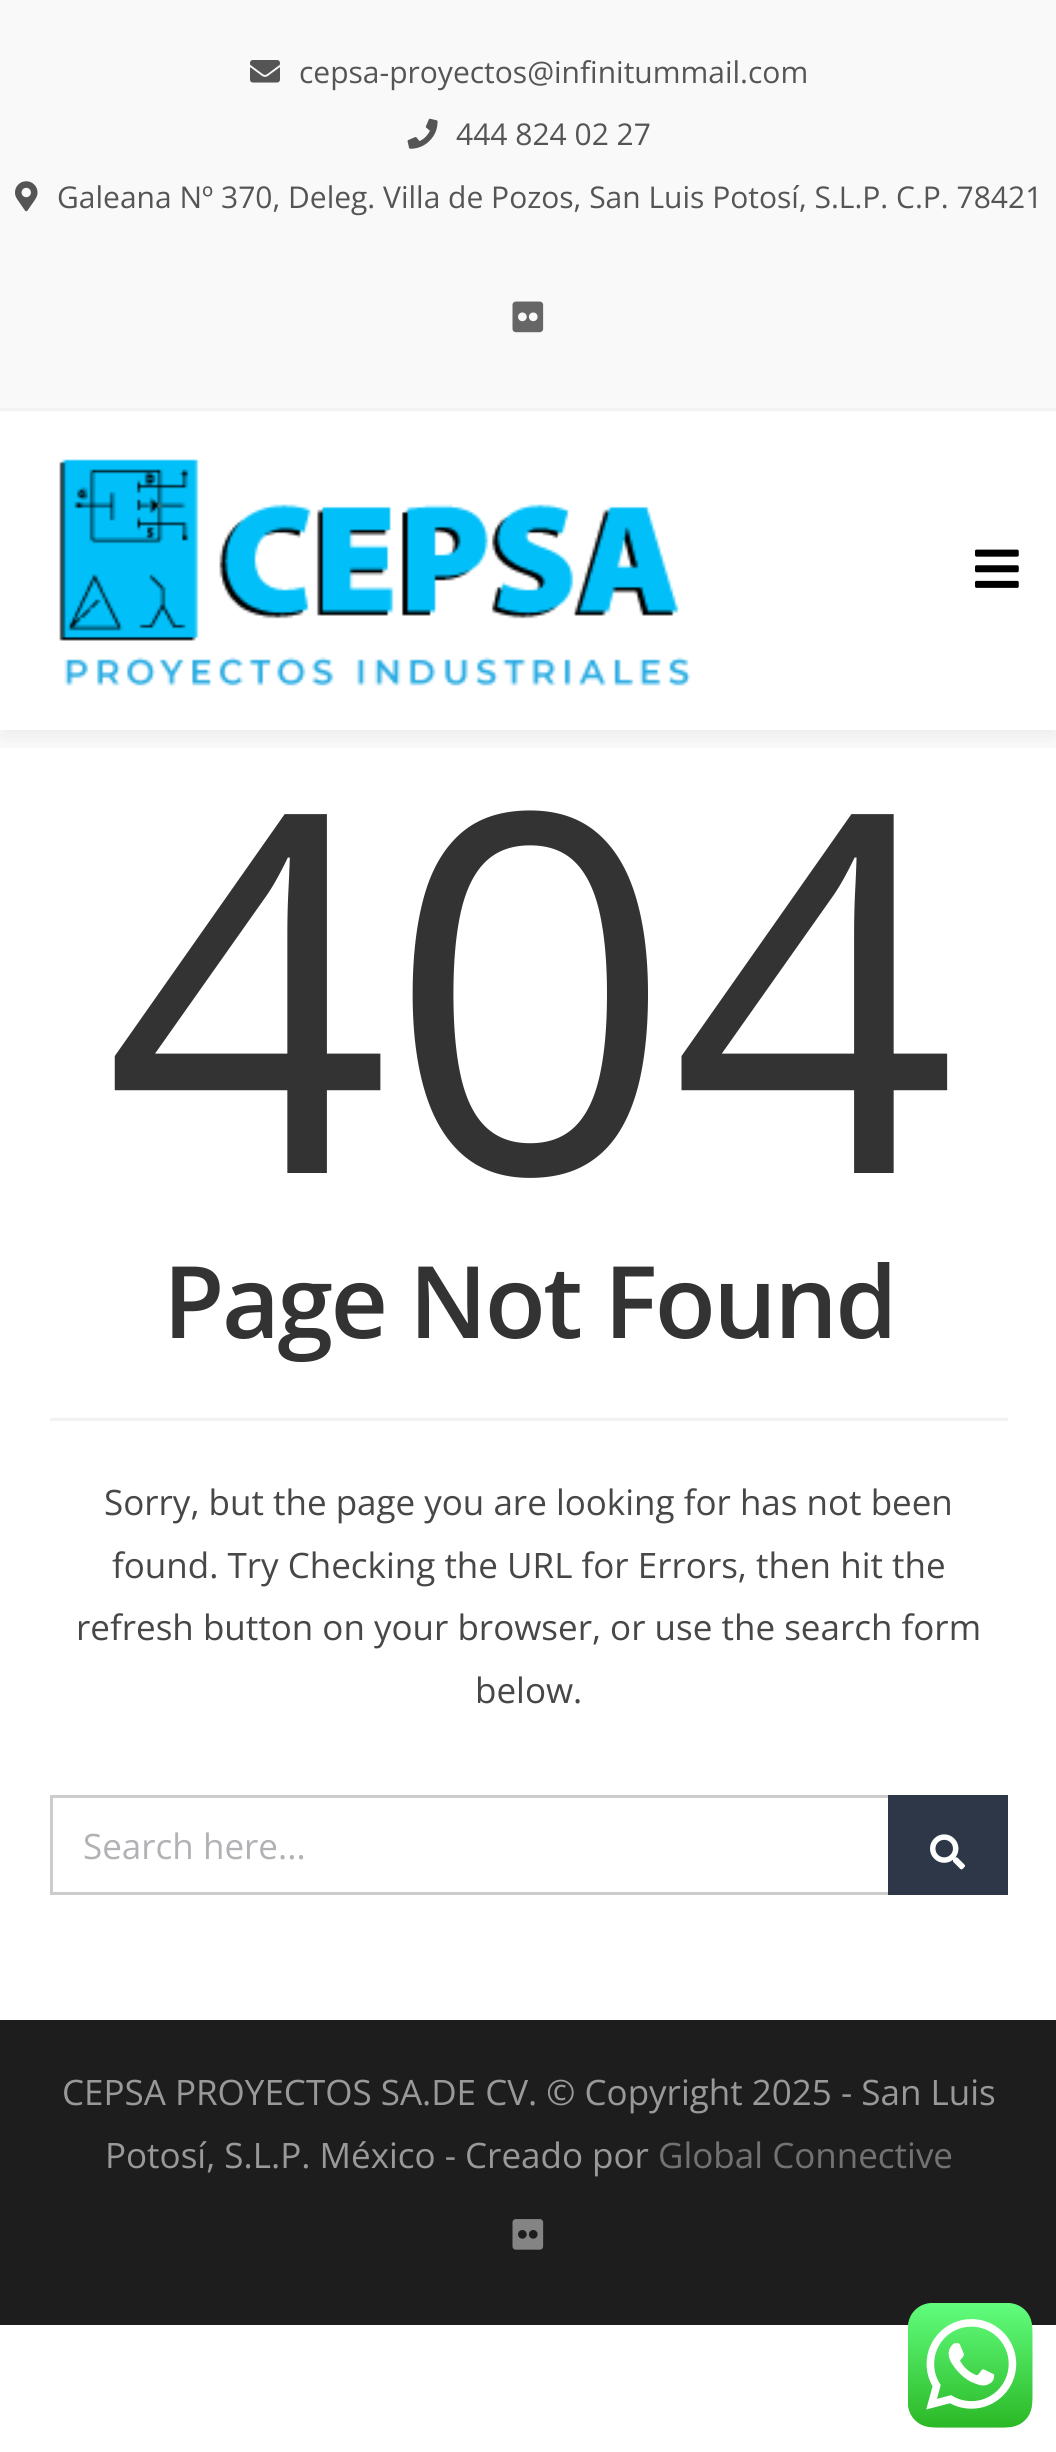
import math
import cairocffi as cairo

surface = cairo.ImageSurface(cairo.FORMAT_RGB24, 1056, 2452)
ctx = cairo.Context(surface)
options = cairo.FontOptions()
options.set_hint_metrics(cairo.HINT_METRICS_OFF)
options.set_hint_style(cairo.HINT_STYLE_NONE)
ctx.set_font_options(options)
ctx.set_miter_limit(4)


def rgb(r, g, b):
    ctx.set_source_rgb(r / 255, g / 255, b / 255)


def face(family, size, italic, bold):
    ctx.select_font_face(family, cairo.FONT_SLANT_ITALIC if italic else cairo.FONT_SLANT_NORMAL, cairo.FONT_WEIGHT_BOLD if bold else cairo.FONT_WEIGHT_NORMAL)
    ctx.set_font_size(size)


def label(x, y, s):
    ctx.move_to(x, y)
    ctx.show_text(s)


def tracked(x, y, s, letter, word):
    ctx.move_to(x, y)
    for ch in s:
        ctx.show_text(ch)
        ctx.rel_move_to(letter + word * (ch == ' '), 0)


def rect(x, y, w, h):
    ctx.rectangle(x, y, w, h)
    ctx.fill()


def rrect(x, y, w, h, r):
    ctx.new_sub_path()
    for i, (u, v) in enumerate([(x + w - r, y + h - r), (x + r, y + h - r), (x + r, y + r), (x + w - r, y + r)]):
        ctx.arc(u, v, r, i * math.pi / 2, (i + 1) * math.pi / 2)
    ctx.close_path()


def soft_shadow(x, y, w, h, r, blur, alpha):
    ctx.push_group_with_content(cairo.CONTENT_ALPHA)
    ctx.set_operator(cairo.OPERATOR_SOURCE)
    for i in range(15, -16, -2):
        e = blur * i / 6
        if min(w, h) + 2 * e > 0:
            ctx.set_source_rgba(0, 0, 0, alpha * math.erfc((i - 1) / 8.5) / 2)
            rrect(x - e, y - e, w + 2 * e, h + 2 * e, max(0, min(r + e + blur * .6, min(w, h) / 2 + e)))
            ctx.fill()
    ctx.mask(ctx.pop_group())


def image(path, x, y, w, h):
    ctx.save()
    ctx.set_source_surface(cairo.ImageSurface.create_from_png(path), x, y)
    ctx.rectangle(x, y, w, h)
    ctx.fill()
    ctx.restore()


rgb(255, 255, 255)
ctx.paint()
ctx.save()
ctx.rectangle(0, 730, 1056, 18)
ctx.clip()
rgb(0, 0, 0)
soft_shadow(0, 420, 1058, 320, 0, 12.5, 0.08)
ctx.restore()
rgb(249, 249, 249)
rect(0, 0, 1056, 408)
rgb(242, 242, 242)
rect(0, 408, 1056, 3)
image('image0.png', 250, 60, 30, 23)
face('Open Sans', 30, 0, 0)
rgb(85, 85, 85)
label(299, 83, 'cepsa-proyectos@infinitummail.com')
image('image1.png', 407, 118, 31, 31)
label(456, 145, '444 824 02 27')
image('image2.png', 15, 181, 23, 31)
label(57, 208, 'Galeana Nº 370, Deleg. Villa de Pozos, San Luis Potosí, S.L.P. C.P. 78421')
image('image3.png', 512, 301, 32, 32)
image('image4.png', 59, 459, 632, 227)
image('image5.png', 975, 549, 44, 39)
rgb(242, 242, 242)
rect(50, 1418, 958, 3)
face('Open Sans', 500, 0, 0)
rgb(51, 51, 51)
tracked(104, 1173, '404', -2.5, 0)
face('Open Sans SemiBold', 100, 0, 0)
tracked(163, 1338, 'Page Not Found', -2.5, 0)
face('Open Sans', 35, 0, 0)
rgb(71, 71, 71)
label(104, 1515, 'Sorry, but the page you are looking for has not been')
label(112, 1578, 'found. Try Checking the URL for Errors, then hit the')
label(76, 1640, 'refresh button on your browser, or use the search form')
label(475, 1703, 'below.')
ctx.rectangle(51.5, 1796.5, 955, 97)
rgb(204, 204, 204)
ctx.set_line_width(3)
ctx.stroke()
rgb(178, 178, 182)
label(83, 1859, 'Search here...')
rgb(45, 55, 72)
rect(888, 1795, 120, 100)
image('image6.png', 930, 1834, 35, 36)
rgb(30, 29, 29)
rect(0, 2020, 1056, 305)
rgb(153, 153, 153)
label(62, 2105, 'CEPSA PROYECTOS SA.DE CV. © Copyright 2025 - San Luis')
label(105, 2168, 'Potosí, S.L.P. México - Creado por')
rgb(114, 114, 114)
label(658, 2168, 'Global Connective')
image('image7.png', 512, 2219, 32, 31)
image('image8.png', 908, 2303, 125, 125)
surface.write_to_png('render.png')
